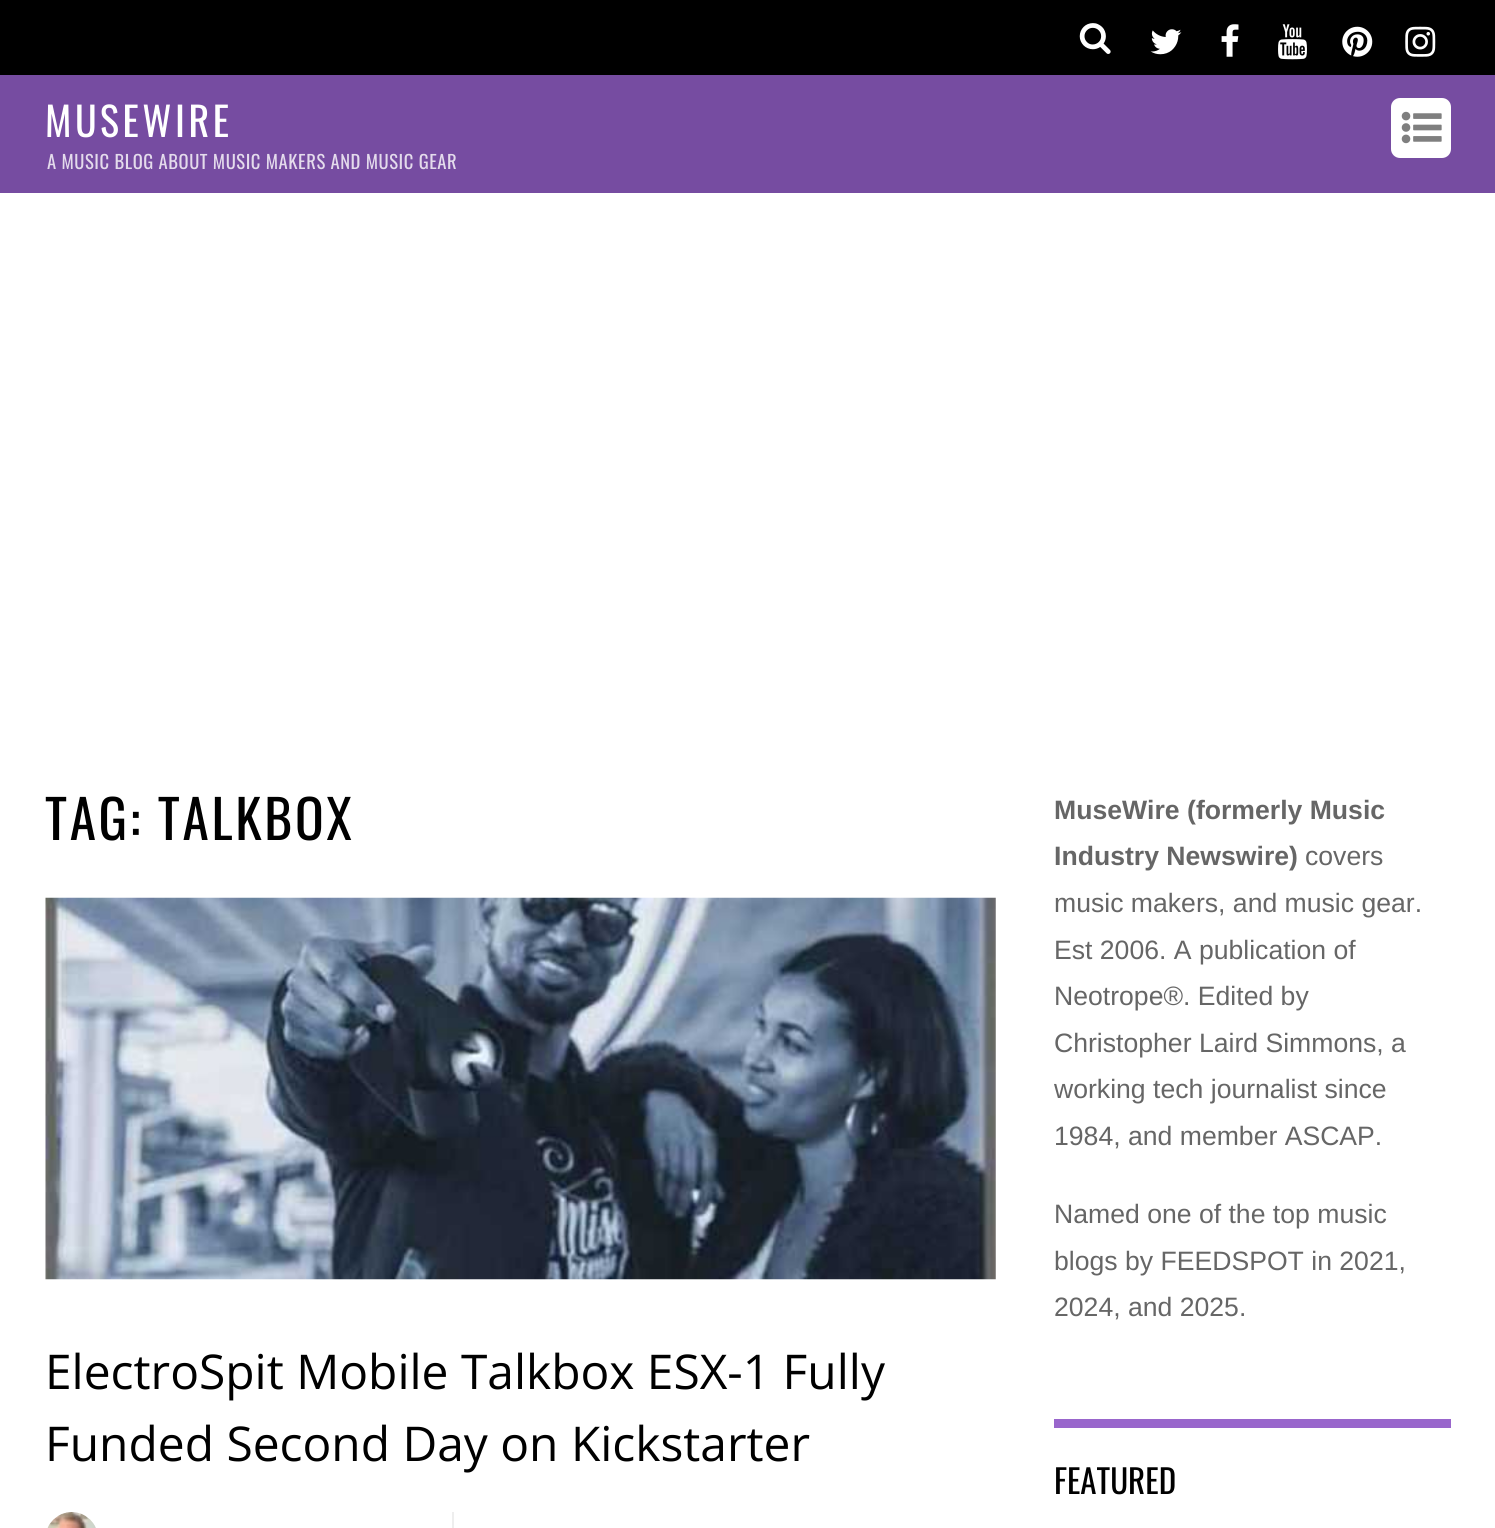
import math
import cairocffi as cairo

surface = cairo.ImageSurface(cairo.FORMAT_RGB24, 1495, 1528)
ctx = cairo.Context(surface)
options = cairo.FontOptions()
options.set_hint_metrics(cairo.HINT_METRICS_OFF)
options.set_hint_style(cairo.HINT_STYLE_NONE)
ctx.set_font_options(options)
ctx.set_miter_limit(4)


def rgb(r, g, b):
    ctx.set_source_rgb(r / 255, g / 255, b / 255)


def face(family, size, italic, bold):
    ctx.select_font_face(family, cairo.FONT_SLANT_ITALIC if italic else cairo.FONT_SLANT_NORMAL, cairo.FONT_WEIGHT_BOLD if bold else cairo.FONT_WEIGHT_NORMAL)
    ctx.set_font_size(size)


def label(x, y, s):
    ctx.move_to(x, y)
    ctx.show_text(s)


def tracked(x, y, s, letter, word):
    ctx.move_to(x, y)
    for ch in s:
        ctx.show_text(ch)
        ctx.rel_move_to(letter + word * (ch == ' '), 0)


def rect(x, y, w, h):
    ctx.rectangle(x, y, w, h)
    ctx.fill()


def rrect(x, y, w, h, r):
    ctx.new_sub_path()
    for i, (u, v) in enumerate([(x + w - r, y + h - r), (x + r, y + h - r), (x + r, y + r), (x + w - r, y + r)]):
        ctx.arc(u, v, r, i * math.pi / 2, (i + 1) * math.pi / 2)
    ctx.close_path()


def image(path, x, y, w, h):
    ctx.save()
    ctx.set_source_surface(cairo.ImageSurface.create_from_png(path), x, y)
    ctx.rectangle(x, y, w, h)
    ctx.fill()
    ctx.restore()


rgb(255, 255, 255)
ctx.paint()
rgb(118, 76, 161)
rect(0, 75, 1495, 118)
rgb(0, 0, 0)
rect(0, 0, 1495, 75)
image('image0.png', 1079, 23, 32, 31)
image('image1.png', 1150, 29, 32, 26)
image('image2.png', 1221, 24, 18, 33)
image('image3.png', 1278, 24, 29, 36)
image('image4.png', 1342, 26, 31, 31)
image('image5.png', 1405, 26, 31, 31)
face('Oswald', 40, 0, 0)
rgb(255, 255, 255)
tracked(45, 137, 'MUSEWIRE', 3.5, 0)
face('Oswald', 18.6, 0, 0)
rgb(228, 219, 236)
tracked(47, 169, 'A MUSIC BLOG ABOUT MUSIC MAKERS AND MUSIC GEAR', 0.55, 0)
rgb(255, 255, 255)
rrect(1391, 98, 60, 60, 9)
ctx.fill()
image('image6.png', 1401, 111, 41, 33)
face('Oswald', 53.25, 0, 0)
rgb(0, 0, 0)
tracked(45, 840, 'TAG: TALKBOX', 2.7, 0)
image('image7.png', 45, 897, 951, 383)
face('Open Sans', 47.9, 0, 0)
label(45, 1389, 'ElectroSpit Mobile Talkbox ESX-1 Fully')
label(45, 1461, 'Funded Second Day on Kickstarter')
image('image8.png', 47, 1512, 49, 16)
rgb(238, 238, 238)
rect(452, 1512, 2, 16)
face('Liberation Sans', 26.6, 0, 1)
rgb(102, 102, 102)
label(1054, 819, 'MuseWire (formerly Music')
label(1054, 865, 'Industry Newswire)')
face('Liberation Sans', 26.6, 0, 0)
label(1305, 865, 'covers')
label(1054, 912, 'music makers, and music gear.')
label(1054, 959, 'Est 2006. A publication of')
label(1054, 1005, 'Neotrope®. Edited by')
label(1054, 1052, 'Christopher Laird Simmons, a')
label(1054, 1098, 'working tech journalist since')
label(1054, 1145, '1984, and member ASCAP.')
label(1054, 1223, 'Named one of the top music')
label(1054, 1270, 'blogs by FEEDSPOT in 2021,')
label(1054, 1316, '2024, and 2025.')
rgb(153, 102, 204)
rect(1054, 1419, 397, 9)
face('Oswald', 33, 0, 0)
rgb(0, 0, 0)
label(1054, 1494, 'FEATURED')
surface.write_to_png('render.png')
